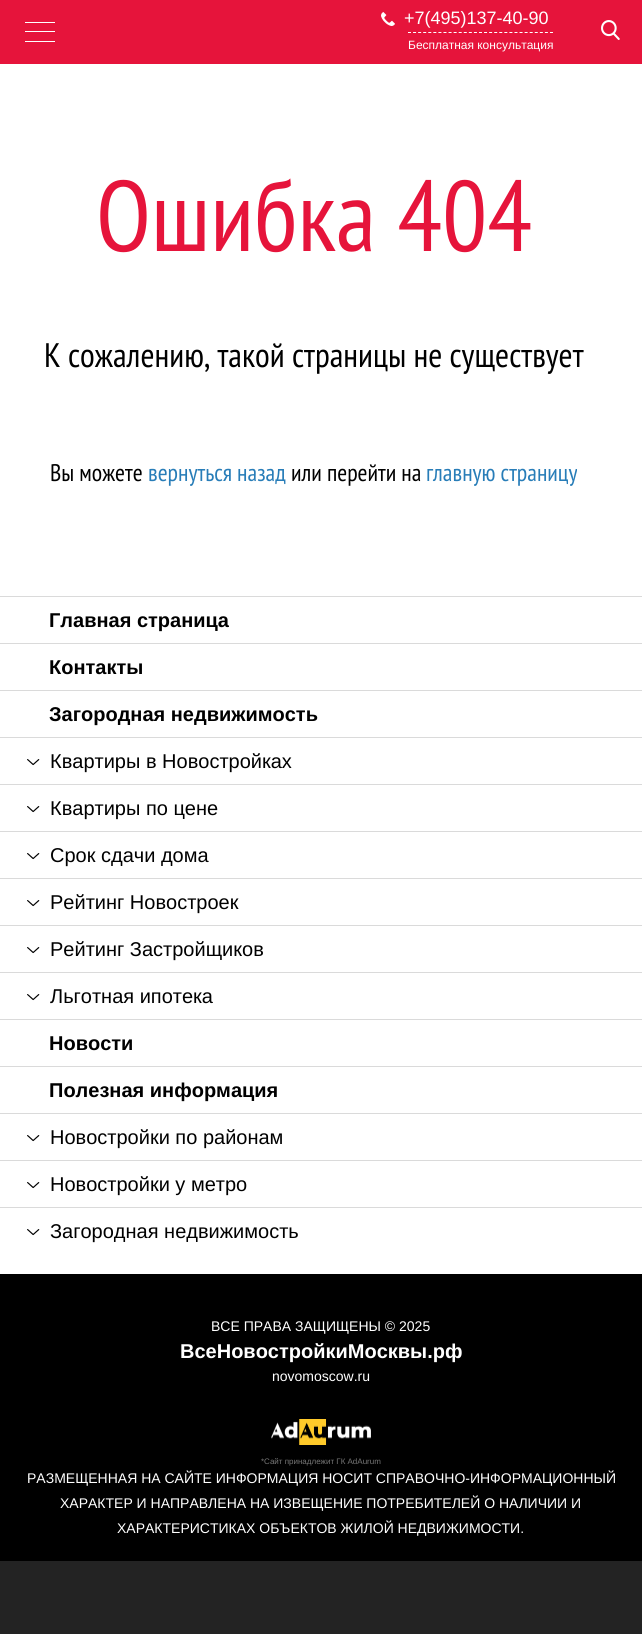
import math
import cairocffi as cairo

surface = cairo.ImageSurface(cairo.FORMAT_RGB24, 642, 1634)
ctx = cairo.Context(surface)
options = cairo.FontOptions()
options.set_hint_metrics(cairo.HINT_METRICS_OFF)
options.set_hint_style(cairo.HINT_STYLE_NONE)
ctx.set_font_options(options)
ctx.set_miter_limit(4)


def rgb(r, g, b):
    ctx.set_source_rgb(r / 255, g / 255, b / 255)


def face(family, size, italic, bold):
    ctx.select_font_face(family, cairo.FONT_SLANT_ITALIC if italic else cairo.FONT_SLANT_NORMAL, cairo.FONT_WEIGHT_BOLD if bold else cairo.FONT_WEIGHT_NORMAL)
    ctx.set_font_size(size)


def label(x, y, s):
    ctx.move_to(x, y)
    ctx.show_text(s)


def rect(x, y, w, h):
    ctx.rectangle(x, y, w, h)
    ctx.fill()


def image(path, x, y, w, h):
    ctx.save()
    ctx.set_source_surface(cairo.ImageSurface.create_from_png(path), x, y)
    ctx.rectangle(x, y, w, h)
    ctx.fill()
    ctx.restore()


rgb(35, 35, 35)
ctx.paint()
rgb(230, 20, 59)
rect(0, 0, 642, 64)
rgb(255, 255, 255)
rect(25, 22, 30, 1)
rect(25, 31, 30, 1)
rect(25, 41, 30, 1)
image('image0.png', 381, 12, 14, 14)
face('Liberation Sans', 18, 0, 0)
label(404, 24, '+7(495)137-40-90')
ctx.new_path()
ctx.move_to(408, 32.5)
ctx.line_to(553, 32.5)
ctx.set_line_width(1)
ctx.set_dash([3, 2.07])
ctx.stroke()
face('Liberation Sans', 12, 0, 0)
label(408, 49, 'Бесплатная консультация')
image('image1.png', 601, 20, 19, 20)
rect(0, 64, 642, 532)
face('PT Sans Narrow', 100, 0, 0)
rgb(230, 20, 59)
label(96, 251, 'Ошибка 404')
face('PT Sans Narrow', 34, 0, 0)
rgb(0, 0, 0)
label(44, 367, 'К сожалению, такой страницы не существует')
face('PT Sans Narrow', 24, 0, 0)
label(50, 481, 'Вы можете')
rgb(40, 125, 184)
label(148, 481, 'вернуться назад')
rgb(0, 0, 0)
label(291, 481, 'или перейти на')
rgb(40, 125, 184)
label(426, 481, 'главную страницу')
rgb(255, 255, 255)
rect(0, 597, 642, 677)
rgb(218, 218, 218)
rect(0, 596, 642, 1)
face('Liberation Sans', 20, 0, 1)
rgb(0, 0, 0)
label(49, 627, 'Главная страница')
rgb(218, 218, 218)
rect(0, 643, 642, 1)
rgb(0, 0, 0)
label(49, 674, 'Контакты')
rgb(218, 218, 218)
rect(0, 690, 642, 1)
rgb(0, 0, 0)
label(49, 721, 'Загородная недвижимость')
rgb(218, 218, 218)
rect(0, 737, 642, 1)
image('image2.png', 27, 759, 13, 7)
face('Liberation Sans', 20, 0, 0)
rgb(0, 0, 0)
label(50, 768, 'Квартиры в Новостройках')
rgb(218, 218, 218)
rect(0, 784, 642, 1)
image('image2.png', 27, 806, 13, 7)
rgb(0, 0, 0)
label(50, 815, 'Квартиры по цене')
rgb(218, 218, 218)
rect(0, 831, 642, 1)
image('image2.png', 27, 853, 13, 7)
rgb(0, 0, 0)
label(50, 862, 'Срок сдачи дома')
rgb(218, 218, 218)
rect(0, 878, 642, 1)
image('image2.png', 27, 900, 13, 7)
rgb(0, 0, 0)
label(50, 909, 'Рейтинг Новостроек')
rgb(218, 218, 218)
rect(0, 925, 642, 1)
image('image2.png', 27, 947, 13, 7)
rgb(0, 0, 0)
label(50, 956, 'Рейтинг Застройщиков')
rgb(218, 218, 218)
rect(0, 972, 642, 1)
image('image2.png', 27, 994, 13, 7)
rgb(0, 0, 0)
label(50, 1003, 'Льготная ипотека')
rgb(218, 218, 218)
rect(0, 1019, 642, 1)
face('Liberation Sans', 20, 0, 1)
rgb(0, 0, 0)
label(49, 1050, 'Новости')
rgb(218, 218, 218)
rect(0, 1066, 642, 1)
rgb(0, 0, 0)
label(49, 1097, 'Полезная информация')
rgb(218, 218, 218)
rect(0, 1113, 642, 1)
image('image2.png', 27, 1135, 13, 7)
face('Liberation Sans', 20, 0, 0)
rgb(0, 0, 0)
label(50, 1144, 'Новостройки по районам')
rgb(218, 218, 218)
rect(0, 1160, 642, 1)
image('image2.png', 27, 1182, 13, 7)
rgb(0, 0, 0)
label(50, 1191, 'Новостройки у метро')
rgb(218, 218, 218)
rect(0, 1207, 642, 1)
image('image2.png', 27, 1229, 13, 7)
rgb(0, 0, 0)
label(50, 1238, 'Загородная недвижимость')
rect(0, 1274, 642, 287)
face('Liberation Sans', 14, 0, 0)
rgb(255, 255, 255)
label(211, 1331, 'ВСЕ ПРАВА ЗАЩИЩЕНЫ © 2025')
face('Liberation Sans', 20, 0, 1)
label(180, 1358, 'ВсеНовостройкиМосквы.рф')
face('Liberation Sans', 14, 0, 0)
label(272, 1381, 'novomoscow.ru')
image('image3.png', 271, 1419, 100, 26)
face('Liberation Sans', 8, 0, 0)
rgb(119, 119, 119)
label(261, 1464, '*Сайт принадлежит ГК AdAurum')
face('Liberation Sans', 14, 0, 0)
rgb(255, 255, 255)
label(27, 1483, 'РАЗМЕЩЕННАЯ НА САЙТЕ ИНФОРМАЦИЯ НОСИТ СПРАВОЧНО-ИНФОРМАЦИОННЫЙ')
label(60, 1508, 'ХАРАКТЕР И НАПРАВЛЕНА НА ИЗВЕЩЕНИЕ ПОТРЕБИТЕЛЕЙ О НАЛИЧИИ И')
label(117, 1533, 'ХАРАКТЕРИСТИКАХ ОБЪЕКТОВ ЖИЛОЙ НЕДВИЖИМОСТИ.')
surface.write_to_png('render.png')
